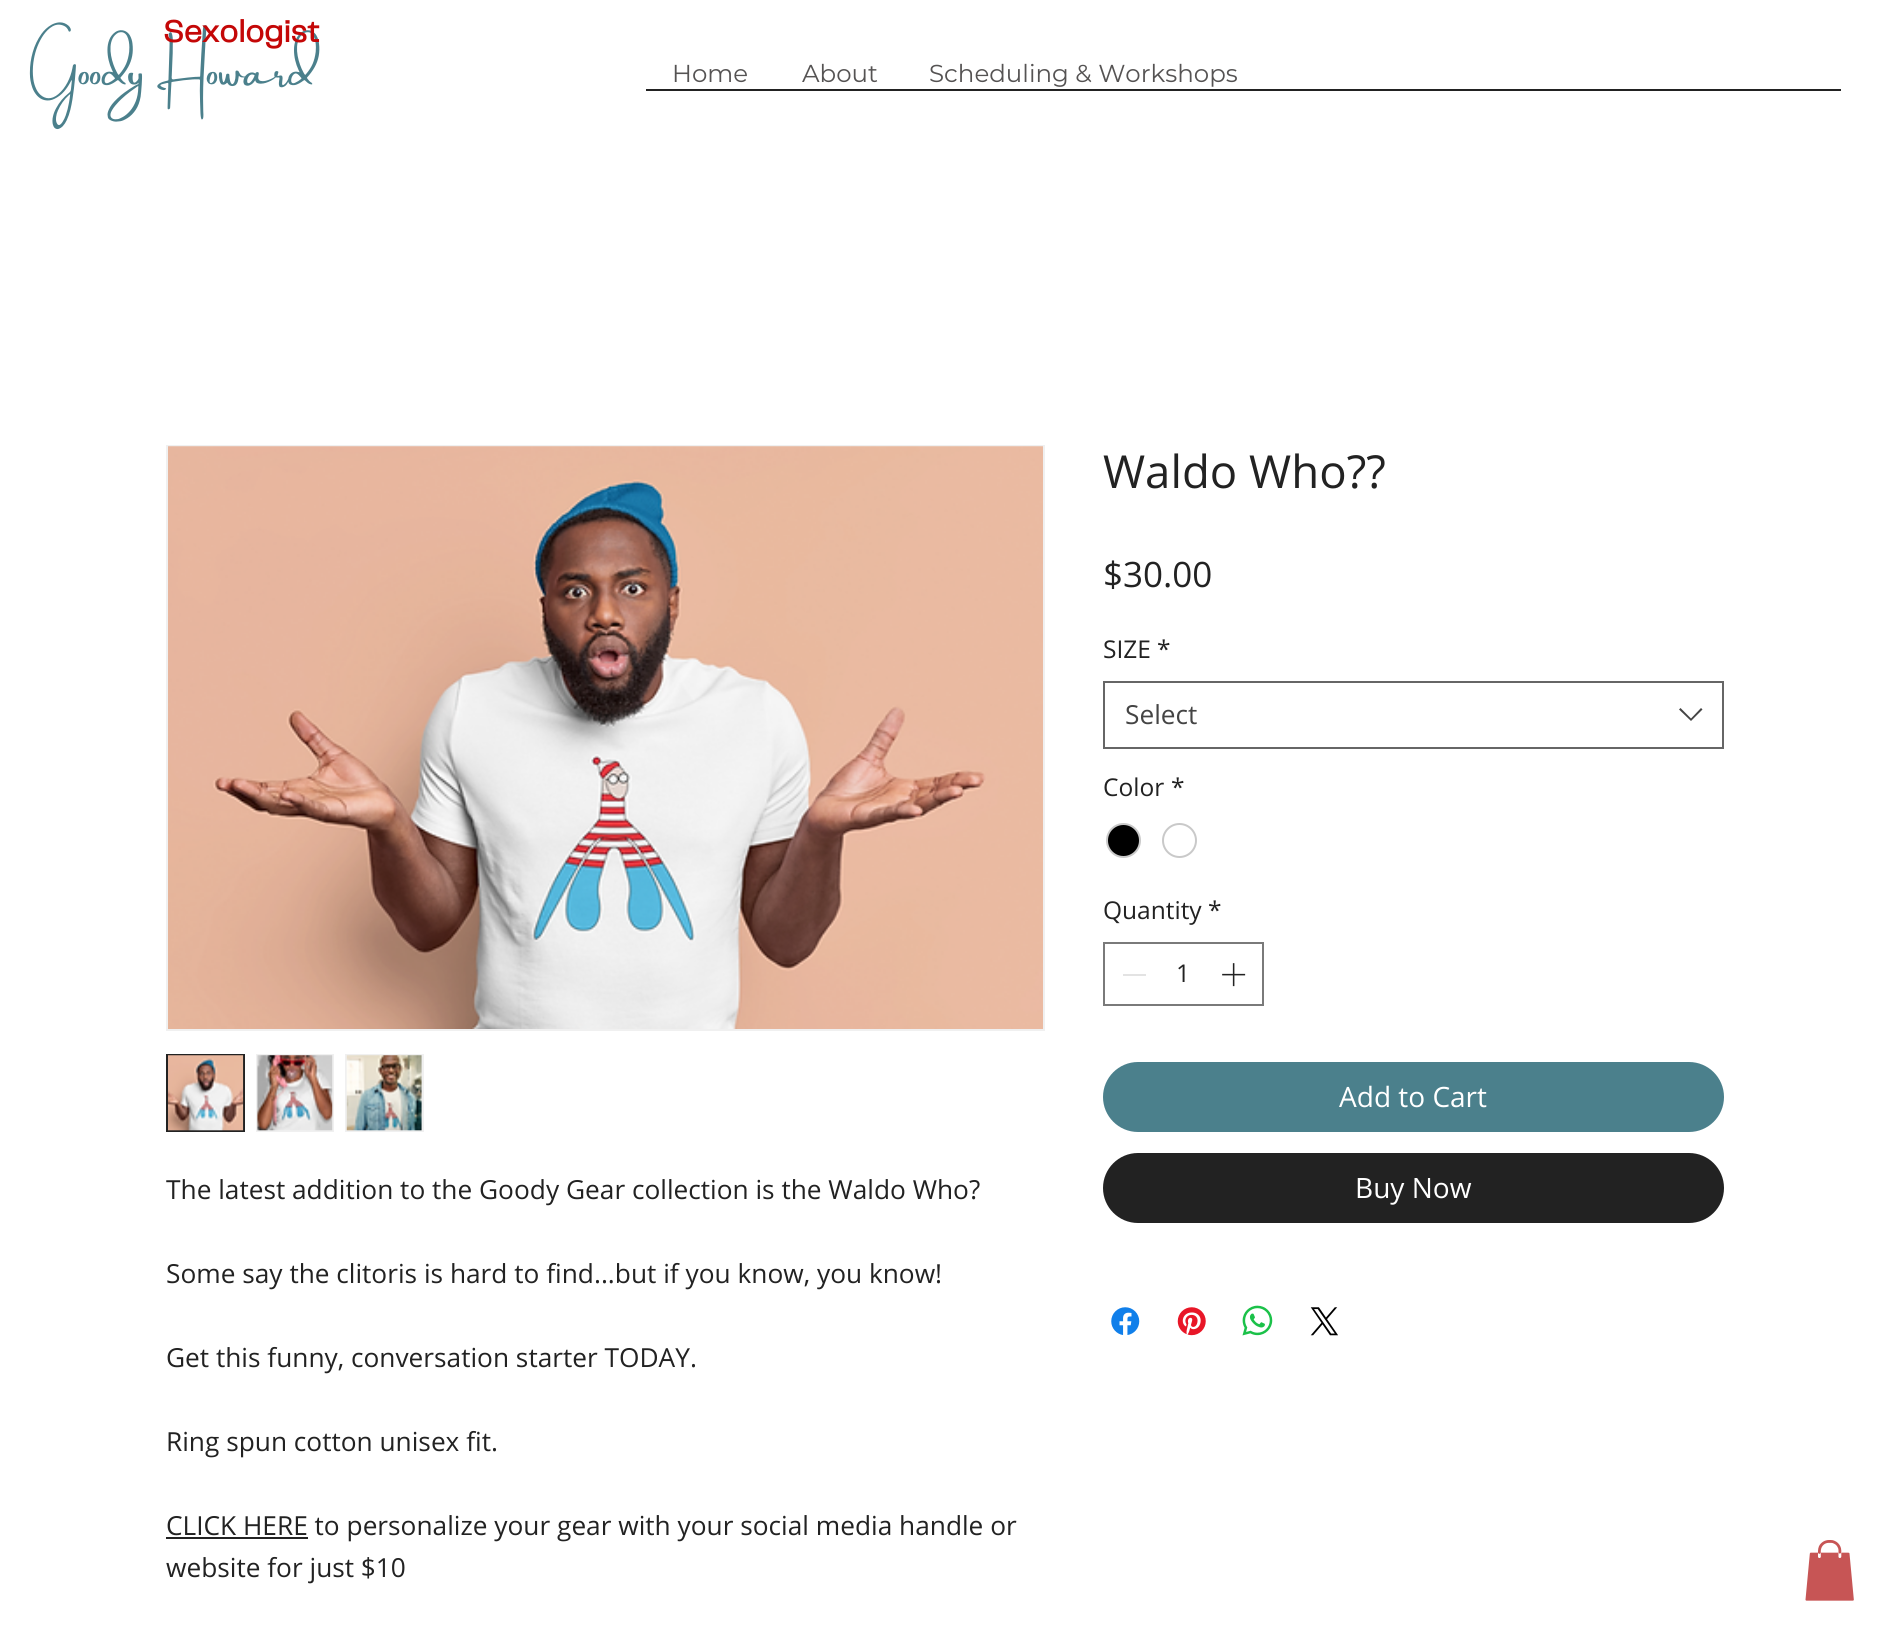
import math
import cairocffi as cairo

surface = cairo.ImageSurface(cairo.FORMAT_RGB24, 1890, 1636)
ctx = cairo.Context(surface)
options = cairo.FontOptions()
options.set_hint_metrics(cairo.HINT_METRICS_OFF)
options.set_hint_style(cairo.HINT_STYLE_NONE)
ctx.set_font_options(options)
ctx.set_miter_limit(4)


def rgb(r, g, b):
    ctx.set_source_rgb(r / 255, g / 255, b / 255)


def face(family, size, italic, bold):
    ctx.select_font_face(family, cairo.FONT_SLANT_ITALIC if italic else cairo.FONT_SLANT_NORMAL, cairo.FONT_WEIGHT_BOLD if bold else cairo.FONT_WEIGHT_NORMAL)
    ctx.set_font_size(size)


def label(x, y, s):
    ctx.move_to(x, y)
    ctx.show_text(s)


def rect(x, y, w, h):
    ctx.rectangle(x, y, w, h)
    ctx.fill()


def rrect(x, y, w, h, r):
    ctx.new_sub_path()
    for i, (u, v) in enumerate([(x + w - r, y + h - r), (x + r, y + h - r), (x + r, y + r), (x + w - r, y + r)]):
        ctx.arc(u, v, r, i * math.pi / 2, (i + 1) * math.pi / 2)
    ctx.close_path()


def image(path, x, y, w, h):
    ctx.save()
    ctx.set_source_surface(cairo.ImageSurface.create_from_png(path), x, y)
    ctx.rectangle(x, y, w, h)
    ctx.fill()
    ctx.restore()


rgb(255, 255, 255)
ctx.paint()
image('image0.png', 29, 22, 291, 108)
face('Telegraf', 31.5, 0, 1)
rgb(196, 7, 7)
label(163, 42, 'Sexologist')
face('Montserrat', 24.5, 0, 0)
rgb(85, 83, 83)
label(672, 82, 'Home')
label(802, 82, 'About')
label(929, 82, 'Scheduling & Workshops')
rgb(34, 34, 34)
rect(646, 89, 1195, 2)
face('Open Sans', 45.5, 0, 0)
label(1103, 488, 'Waldo Who??')
face('Open Sans', 35, 0, 0)
label(1103, 587, '$30.00')
face('Open Sans', 24.5, 0, 0)
label(1103, 658, 'SIZE')
label(1157, 658, '*')
ctx.rectangle(1104, 682, 619, 66)
rgb(102, 102, 102)
ctx.stroke()
face('Open Sans', 26.25, 0, 0)
rgb(68, 68, 68)
label(1125, 724, 'Select')
ctx.set_fill_rule(cairo.FILL_RULE_EVEN_ODD)
ctx.new_path()
ctx.move_to(1701, 708)
ctx.line_to(1702.5, 709.5)
ctx.line_to(1691, 721)
ctx.line_to(1679, 709.5)
ctx.line_to(1680.5, 708)
ctx.line_to(1691, 718.5)
ctx.close_path()
ctx.fill()
face('Open Sans', 24.5, 0, 0)
rgb(34, 34, 34)
label(1103, 796, 'Color')
label(1171, 796, '*')
rgb(0, 0, 0)
ctx.new_path()
ctx.arc(1123.5, 840.5, 16.5, 0, 2 * math.pi)
ctx.fill_preserve()
rgb(201, 201, 201)
ctx.stroke()
ctx.arc(1179.5, 840.5, 16.5, 0, 2 * math.pi)
ctx.stroke()
rgb(34, 34, 34)
label(1103, 919, 'Quantity')
label(1208, 919, '*')
ctx.rectangle(1104, 943, 159, 62)
rgb(122, 122, 122)
ctx.stroke()
rgb(227, 227, 227)
rect(1123, 974, 23, 2)
rgb(34, 34, 34)
label(1176, 982, '1')
image('image1.png', 1222, 963, 24, 24)
rgb(75, 128, 140)
rrect(1103, 1062, 621, 70, 35)
ctx.fill()
face('Open Sans', 28, 0, 0)
rgb(255, 255, 255)
label(1339, 1107, 'Add to Cart')
rgb(34, 34, 34)
rrect(1103, 1153, 621, 70, 35)
ctx.fill()
rgb(255, 255, 255)
label(1355, 1198, 'Buy Now')
image('image2.png', 1111, 1307, 29, 28)
image('image3.png', 1177, 1307, 29, 29)
image('image4.png', 1242, 1305, 31, 31)
image('image5.png', 1310, 1307, 28, 29)
ctx.rectangle(167, 446, 877, 584)
rgb(240, 240, 240)
ctx.stroke()
image('image6.png', 168, 446, 875, 583)
ctx.rectangle(167, 1055, 77, 76)
rgb(34, 34, 34)
ctx.stroke()
image('image7.png', 168, 1055, 76, 76)
rgb(240, 240, 240)
rect(256, 1054, 78, 78)
image('image8.png', 257, 1055, 76, 76)
rect(345, 1054, 79, 78)
image('image9.png', 346, 1055, 76, 76)
face('Open Sans', 26.25, 0, 0)
rgb(34, 34, 34)
label(166, 1199, 'The latest addition to the Goody Gear collection is the Waldo Who?')
label(166, 1283, 'Some say the clitoris is hard to find...but if you know, you know!')
label(166, 1367, 'Get this funny, conversation starter TODAY.')
label(166, 1451, 'Ring spun cotton unisex fit.')
rect(166, 1537, 142, 2)
label(166, 1535, 'CLICK HERE to personalize your gear with your social media handle or')
label(166, 1577, 'website for just $10')
image('image10.png', 1805, 1540, 49, 61)
surface.write_to_png('render.png')
